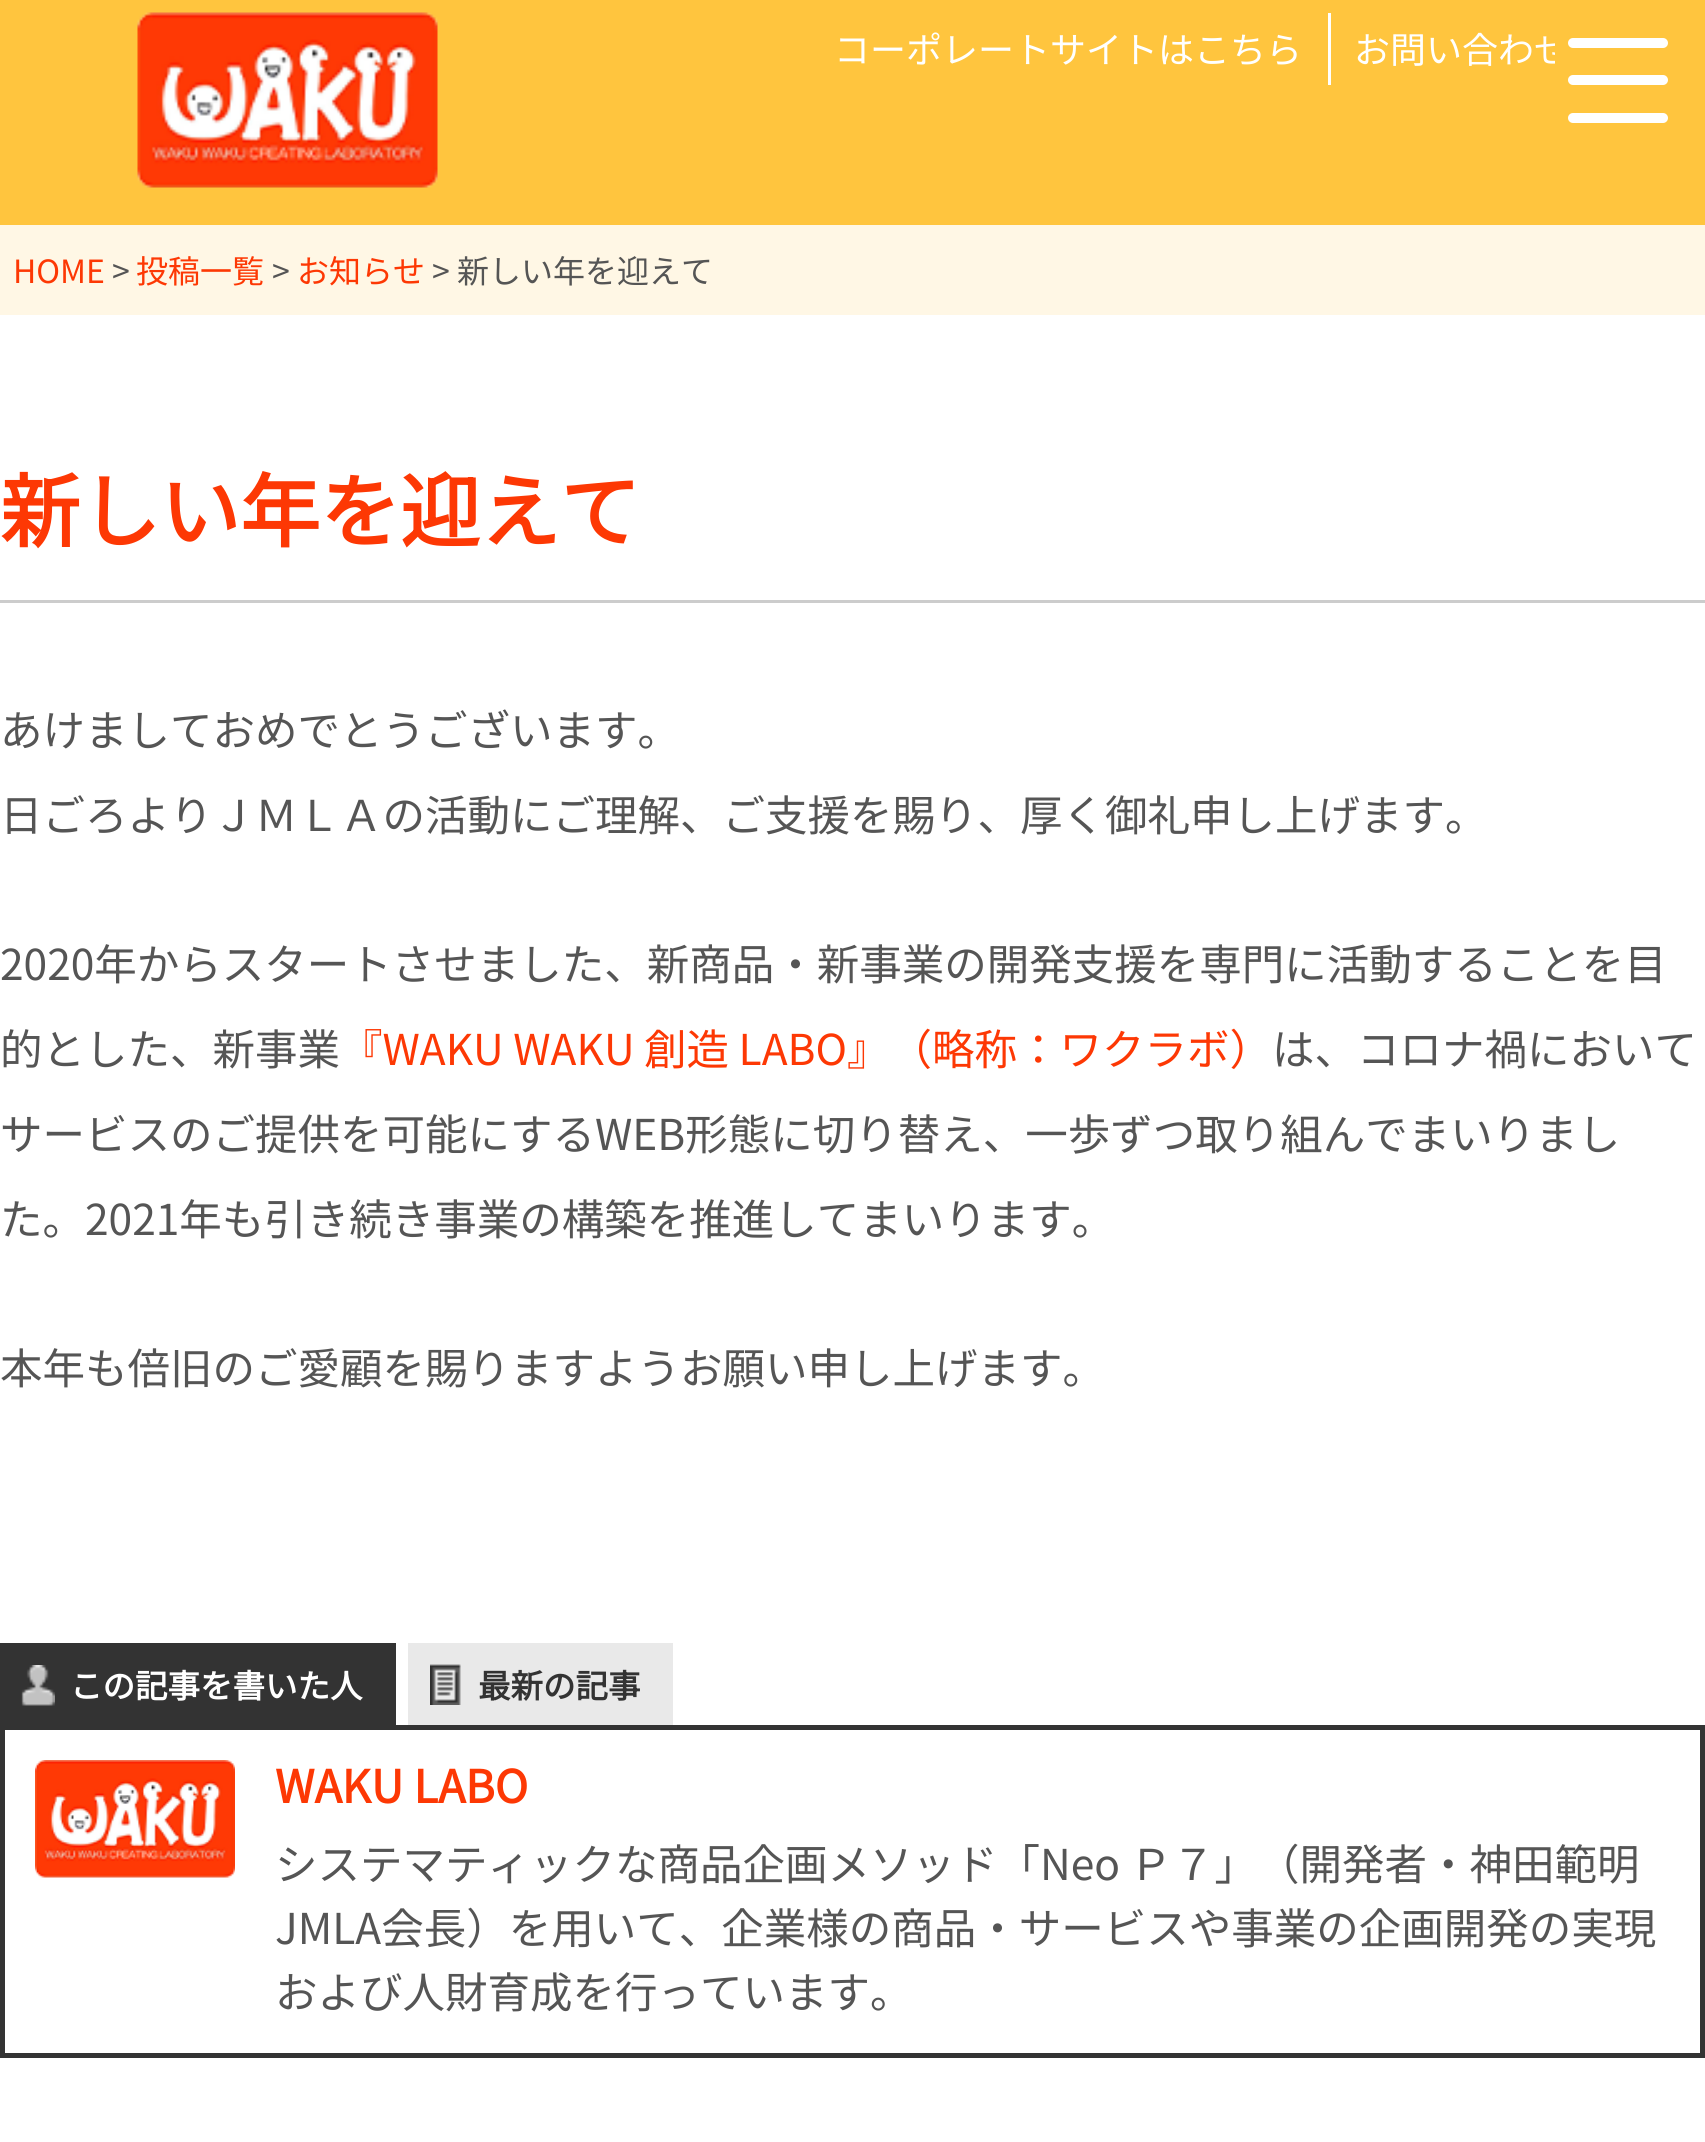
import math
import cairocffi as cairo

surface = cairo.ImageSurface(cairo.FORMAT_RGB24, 1705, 2142)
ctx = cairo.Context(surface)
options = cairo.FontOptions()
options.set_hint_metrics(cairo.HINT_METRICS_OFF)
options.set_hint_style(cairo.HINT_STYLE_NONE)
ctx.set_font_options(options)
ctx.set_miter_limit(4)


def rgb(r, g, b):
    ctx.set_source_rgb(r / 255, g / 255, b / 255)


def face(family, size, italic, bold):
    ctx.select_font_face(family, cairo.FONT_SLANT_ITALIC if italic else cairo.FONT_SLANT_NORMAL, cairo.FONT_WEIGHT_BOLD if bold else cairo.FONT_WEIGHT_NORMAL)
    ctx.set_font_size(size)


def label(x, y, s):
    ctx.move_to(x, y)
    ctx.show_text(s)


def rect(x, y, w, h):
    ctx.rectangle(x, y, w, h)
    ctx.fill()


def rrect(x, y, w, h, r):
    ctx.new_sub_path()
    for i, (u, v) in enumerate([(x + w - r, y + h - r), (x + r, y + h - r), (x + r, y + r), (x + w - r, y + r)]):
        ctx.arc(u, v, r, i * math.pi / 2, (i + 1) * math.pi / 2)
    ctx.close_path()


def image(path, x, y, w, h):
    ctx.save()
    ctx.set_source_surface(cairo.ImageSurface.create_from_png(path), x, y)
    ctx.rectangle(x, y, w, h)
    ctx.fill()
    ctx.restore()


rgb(255, 255, 255)
ctx.paint()
rgb(255, 197, 62)
rect(0, 0, 1705, 225)
image('image0.png', 137, 12, 301, 176)
rgb(255, 255, 255)
rect(1328, 13, 3, 72)
face('Noto Sans JP Thin', 36, 0, 0)
label(834, 63, 'コーポレートサイトはこちら')
label(1354, 63, 'お問い合わせ')
rgb(255, 197, 62)
rect(1555, 35, 13, 29)
rgb(255, 255, 255)
rrect(1568, 38, 100, 10, 5)
ctx.fill()
rrect(1568, 75, 100, 10, 5)
ctx.fill()
rrect(1568, 113, 100, 10, 5)
ctx.fill()
rgb(255, 247, 229)
rect(0, 225, 1705, 90)
face('Noto Sans JP Thin', 32, 0, 0)
rgb(253, 56, 4)
label(13, 283, 'HOME')
rgb(85, 85, 85)
label(112, 283, '>')
rgb(253, 56, 4)
label(136, 283, '投稿一覧')
rgb(85, 85, 85)
label(272, 283, '>')
rgb(253, 56, 4)
label(297, 283, 'お知らせ')
rgb(85, 85, 85)
label(432, 283, '> 新しい年を迎えて')
rgb(204, 204, 204)
rect(0, 600, 1705, 3)
face('Noto Sans JP', 80, 0, 1)
rgb(253, 56, 4)
label(0, 541, '新しい年を迎えて')
face('Noto Sans JP Thin', 42.5, 0, 0)
rgb(85, 85, 85)
label(0, 746, 'あけましておめでとうございます。')
label(0, 831, '日ごろよりＪＭＬＡの活動にご理解、ご支援を賜り、厚く御礼申し上げます。')
label(0, 980, '2020年からスタートさせました、新商品・新事業の開発支援を専門に活動することを目')
label(0, 1065, '的とした、新事業')
rgb(253, 56, 4)
label(340, 1065, '『WAKU WAKU 創造 LABO』（略称：ワクラボ）')
rgb(85, 85, 85)
label(1272, 1065, 'は、コロナ禍において')
label(0, 1150, 'サービスのご提供を可能にするWEB形態に切り替え、一歩ずつ取り組んでまいりまし')
label(0, 1235, 'た。2021年も引き続き事業の構築を推進してまいります。')
label(0, 1384, '本年も倍旧のご愛顧を賜りますようお願い申し上げます。')
rgb(51, 51, 51)
rect(0, 1643, 396, 82)
image('image1.png', 21, 1665, 34, 41)
face('Noto Sans JP', 32.5, 0, 1)
rgb(255, 255, 255)
label(70, 1698, 'この記事を書いた人')
rgb(233, 233, 233)
rect(408, 1643, 265, 82)
image('image2.png', 430, 1664, 31, 41)
rgb(51, 51, 51)
label(478, 1698, '最新の記事')
ctx.rectangle(2.5, 1727.5, 1700, 328)
ctx.set_line_width(5)
ctx.stroke()
image('image3.png', 35, 1760, 200, 118)
face('Noto Sans JP', 45, 0, 1)
rgb(253, 56, 4)
label(275, 1803, 'WAKU LABO')
face('Noto Sans JP Thin', 42.5, 0, 0)
rgb(85, 85, 85)
label(275, 1880, 'システマティックな商品企画メソッド「Neo Ｐ７」（開発者・神田範明')
label(275, 1944, 'JMLA会長）を用いて、企業様の商品・サービスや事業の企画開発の実現')
label(275, 2008, 'および人財育成を行っています。')
surface.write_to_png('render.png')
